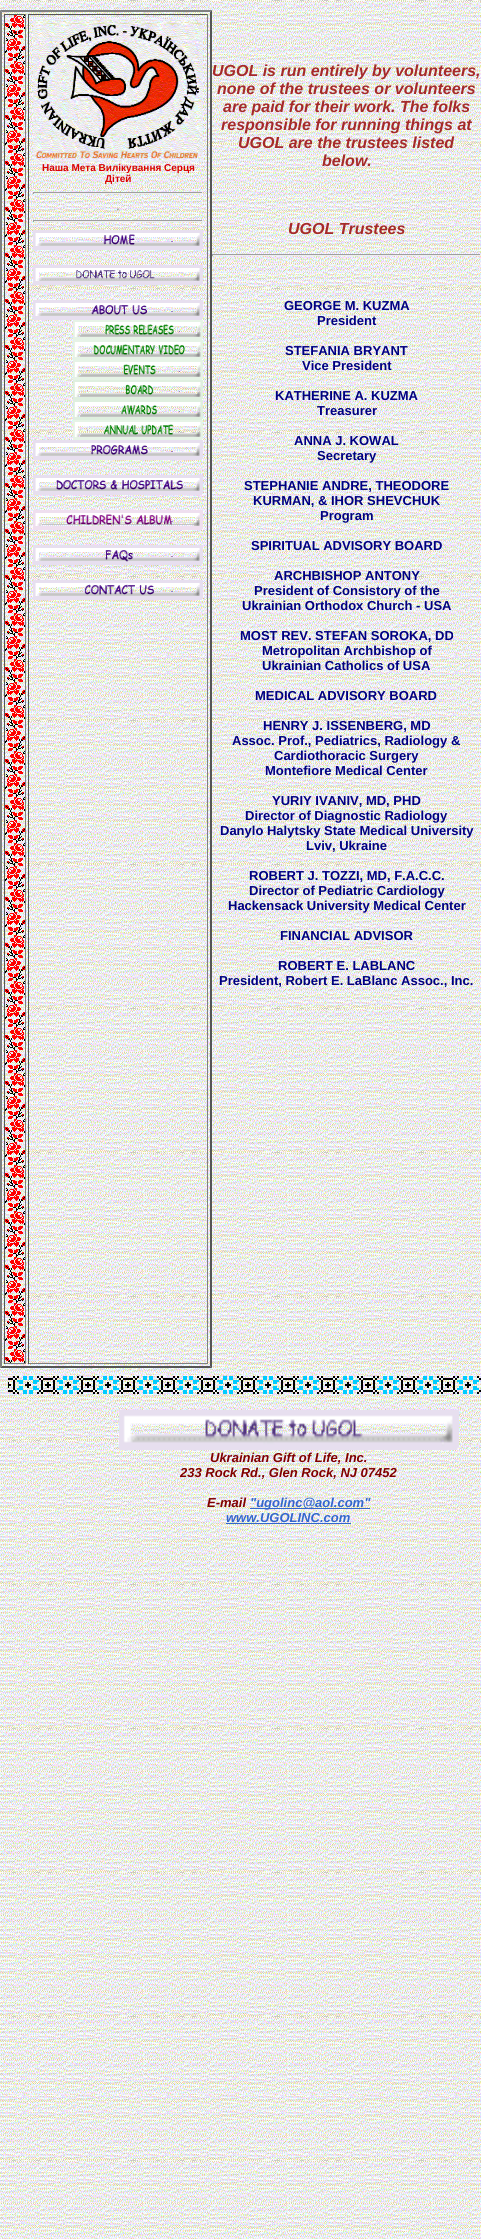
import math
import cairocffi as cairo

surface = cairo.ImageSurface(cairo.FORMAT_RGB24, 481, 2239)
ctx = cairo.Context(surface)
options = cairo.FontOptions()
options.set_hint_metrics(cairo.HINT_METRICS_OFF)
options.set_hint_style(cairo.HINT_STYLE_NONE)
ctx.set_font_options(options)
ctx.set_miter_limit(4)


def rgb(r, g, b):
    ctx.set_source_rgb(r / 255, g / 255, b / 255)


def face(family, size, italic, bold):
    ctx.select_font_face(family, cairo.FONT_SLANT_ITALIC if italic else cairo.FONT_SLANT_NORMAL, cairo.FONT_WEIGHT_BOLD if bold else cairo.FONT_WEIGHT_NORMAL)
    ctx.set_font_size(size)


def label(x, y, s):
    ctx.move_to(x, y)
    ctx.show_text(s)


def rect(x, y, w, h):
    ctx.rectangle(x, y, w, h)
    ctx.fill()


def image(path, x, y, w, h):
    ctx.save()
    ctx.set_source_surface(cairo.ImageSurface.create_from_png(path), x, y)
    ctx.rectangle(x, y, w, h)
    ctx.fill()
    ctx.restore()


rgb(255, 255, 255)
ctx.paint()
image('image0.png', 0, 0, 481, 2239)
rgb(128, 128, 128)
ctx.new_path()
ctx.move_to(0, 10)
ctx.line_to(212, 10)
ctx.line_to(210, 12)
ctx.line_to(2, 12)
ctx.close_path()
ctx.fill()
rgb(85, 85, 85)
ctx.new_path()
ctx.move_to(212, 10)
ctx.line_to(212, 1368)
ctx.line_to(210, 1366)
ctx.line_to(210, 12)
ctx.close_path()
ctx.fill()
ctx.new_path()
ctx.move_to(212, 1368)
ctx.line_to(0, 1368)
ctx.line_to(2, 1366)
ctx.line_to(210, 1366)
ctx.close_path()
ctx.fill()
rgb(128, 128, 128)
ctx.new_path()
ctx.move_to(0, 1368)
ctx.line_to(0, 10)
ctx.line_to(2, 12)
ctx.line_to(2, 1366)
ctx.close_path()
ctx.fill()
image('image1.png', 5, 15, 20, 1348)
rgb(85, 85, 85)
rect(4, 14, 22, 1)
rgb(128, 128, 128)
rect(25, 14, 1, 1350)
rect(4, 1363, 22, 1)
rgb(85, 85, 85)
rect(4, 14, 1, 1350)
face('Liberation Serif', 16, 0, 0)
rgb(0, 0, 0)
label(13, 33, '..')
rgb(85, 85, 85)
rect(28, 14, 180, 1)
rgb(128, 128, 128)
rect(207, 14, 1, 1350)
rect(28, 1363, 180, 1)
rgb(85, 85, 85)
rect(28, 14, 1, 1350)
image('image2.png', 33, 19, 170, 143)
face('Liberation Sans', 10, 0, 1)
rgb(218, 0, 0)
label(42, 171, 'Наша Мета Вилікування Серця')
label(105, 182, 'Дітей')
rgb(159, 159, 159)
rect(33, 192, 170, 1)
rgb(238, 238, 238)
rect(202, 192, 1, 2)
rect(33, 193, 170, 1)
rgb(159, 159, 159)
rect(33, 192, 1, 2)
face('Liberation Sans', 9, 1, 1)
rgb(128, 128, 128)
label(117, 210, '.')
rgb(159, 159, 159)
rect(33, 220, 170, 1)
rgb(238, 238, 238)
rect(202, 220, 1, 2)
rect(33, 221, 170, 1)
rgb(159, 159, 159)
rect(33, 220, 1, 2)
image('image3.png', 33, 230, 170, 20)
image('image4.png', 33, 265, 170, 20)
image('image5.png', 33, 300, 170, 20)
image('image6.png', 73, 320, 130, 20)
image('image7.png', 73, 340, 130, 20)
image('image8.png', 73, 360, 130, 20)
image('image9.png', 73, 380, 130, 20)
image('image10.png', 73, 400, 130, 20)
image('image11.png', 73, 420, 130, 20)
image('image12.png', 33, 440, 170, 20)
image('image13.png', 33, 475, 170, 20)
image('image14.png', 33, 510, 170, 20)
image('image15.png', 33, 545, 170, 20)
image('image16.png', 33, 580, 170, 20)
face('Liberation Sans', 16, 1, 1)
rgb(165, 42, 42)
label(212, 76, 'UGOL is run entirely by volunteers,')
label(217, 94, 'none of the trustees or volunteers')
label(223, 112, 'are paid for their work. The folks')
label(221, 130, 'responsible for running things at')
label(238, 148, 'UGOL are the trustees listed')
label(322, 166, 'below.')
label(288, 234, 'UGOL Trustees')
rgb(159, 159, 159)
rect(212, 254, 269, 1)
rgb(238, 238, 238)
rect(480, 254, 1, 2)
rect(212, 255, 269, 1)
rgb(159, 159, 159)
rect(212, 254, 1, 2)
face('Liberation Sans', 13, 0, 1)
rgb(0, 0, 128)
label(284, 310, 'GEORGE M. KUZMA')
label(317, 325, 'President')
label(285, 355, 'STEFANIA BRYANT')
label(302, 370, 'Vice President')
label(275, 400, 'KATHERINE A. KUZMA')
label(317, 415, 'Treasurer')
label(294, 445, 'ANNA J. KOWAL')
label(317, 460, 'Secretary')
label(244, 490, 'STEPHANIE ANDRE, THEODORE')
label(253, 505, 'KURMAN, & IHOR SHEVCHUK')
label(320, 520, 'Program')
label(251, 550, 'SPIRITUAL ADVISORY BOARD')
label(274, 580, 'ARCHBISHOP ANTONY')
label(254, 595, 'President of Consistory of the')
label(242, 610, 'Ukrainian Orthodox Church - USA')
label(240, 640, 'MOST REV. STEFAN SOROKA, DD')
label(262, 655, 'Metropolitan Archbishop of')
label(262, 670, 'Ukrainian Catholics of USA')
label(255, 700, 'MEDICAL ADVISORY BOARD')
label(263, 730, 'HENRY J. ISSENBERG, MD')
label(232, 745, 'Assoc. Prof., Pediatrics, Radiology &')
label(274, 760, 'Cardiothoracic Surgery')
label(265, 775, 'Montefiore Medical Center')
label(272, 805, 'YURIY IVANIV, MD, PHD')
label(245, 820, 'Director of Diagnostic Radiology')
label(220, 835, 'Danylo Halytsky State Medical University')
label(306, 850, 'Lviv, Ukraine')
label(249, 880, 'ROBERT J. TOZZI, MD, F.A.C.C.')
label(249, 895, 'Director of Pediatric Cardiology')
label(228, 910, 'Hackensack University Medical Center')
label(280, 940, 'FINANCIAL ADVISOR')
label(278, 970, 'ROBERT E. LABLANC')
label(219, 985, 'President, Robert E. LaBlanc Assoc., Inc.')
image('image17.png', 8, 1376, 473, 18)
image('image18.png', 119, 1410, 340, 40)
face('Liberation Sans', 13, 1, 1)
rgb(128, 0, 0)
label(210, 1462, 'Ukrainian Gift of Life, Inc.')
label(180, 1477, '233 Rock Rd., Glen Rock, NJ 07452')
label(207, 1507, 'E-mail')
rgb(51, 102, 204)
rect(250, 1508, 120, 1)
label(250, 1507, '"ugolinc@aol.com"')
label(226, 1522, 'www.UGOLINC.com')
rect(226, 1523, 125, 1)
surface.write_to_png('render.png')
